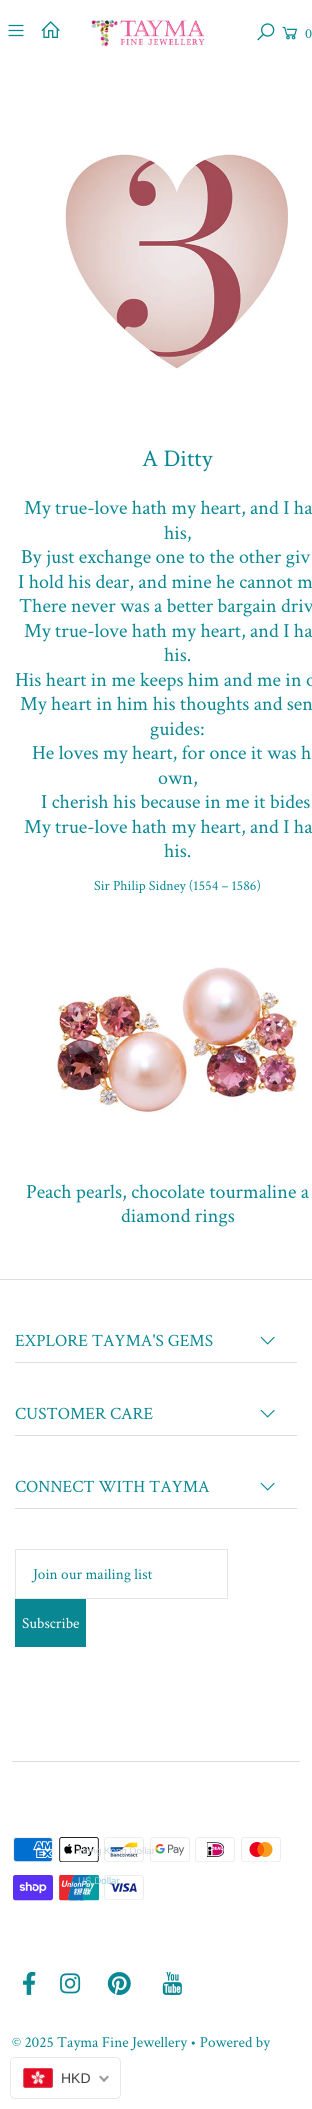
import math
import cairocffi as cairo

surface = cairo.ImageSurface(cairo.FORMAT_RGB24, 312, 2109)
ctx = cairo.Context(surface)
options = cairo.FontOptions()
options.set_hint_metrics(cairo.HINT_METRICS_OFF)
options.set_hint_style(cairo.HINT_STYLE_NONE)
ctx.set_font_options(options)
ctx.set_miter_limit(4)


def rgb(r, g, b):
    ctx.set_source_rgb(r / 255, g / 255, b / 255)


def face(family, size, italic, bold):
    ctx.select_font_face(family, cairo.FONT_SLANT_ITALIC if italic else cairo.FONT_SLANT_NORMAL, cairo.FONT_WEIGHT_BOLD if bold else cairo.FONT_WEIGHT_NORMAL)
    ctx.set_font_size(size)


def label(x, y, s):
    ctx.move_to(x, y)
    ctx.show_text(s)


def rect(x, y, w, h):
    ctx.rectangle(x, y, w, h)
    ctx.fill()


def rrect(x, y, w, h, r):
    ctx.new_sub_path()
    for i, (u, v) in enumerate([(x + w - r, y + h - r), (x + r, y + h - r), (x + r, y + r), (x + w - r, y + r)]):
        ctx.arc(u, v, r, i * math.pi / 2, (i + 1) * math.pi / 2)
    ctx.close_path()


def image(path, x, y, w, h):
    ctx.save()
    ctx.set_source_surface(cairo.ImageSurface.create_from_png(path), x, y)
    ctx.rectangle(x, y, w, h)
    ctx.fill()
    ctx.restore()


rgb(255, 255, 255)
ctx.paint()
image('image0.png', 8, 24, 16, 13)
image('image1.png', 41, 21, 19, 17)
image('image2.png', 91, 19, 116, 28)
image('image3.png', 257, 23, 18, 18)
image('image4.png', 282, 26, 16, 14)
face('Crimson Text', 14, 0, 0)
rgb(9, 136, 148)
label(305, 38, '0')
image('image5.png', 65, 154, 224, 216)
face('Crimson Text', 24, 0, 0)
label(142, 466, 'A Ditty')
face('Crimson Text', 20, 0, 0)
label(24, 514, 'My true-love hath my heart, and I ha')
label(164, 539, 'his,')
label(21, 563, 'By just exchange one to the other giv')
label(18, 588, 'I hold his dear, and mine he cannot m')
label(19, 612, 'There never was a better bargain driv')
label(24, 637, 'My true-love hath my heart, and I ha')
label(164, 661, 'his.')
label(15, 686, 'His heart in me keeps him and me in o')
label(20, 710, 'My heart in him his thoughts and sen')
label(150, 735, 'guides:')
label(32, 759, 'He loves my heart, for once it was h')
label(158, 784, 'own,')
label(41, 808, 'I cherish his because in me it bides')
label(24, 833, 'My true-love hath my heart, and I ha')
label(164, 857, 'his.')
face('Crimson Text', 14, 0, 0)
label(94, 890, 'Sir Philip Sidney (1554 – 1586)')
image('image6.png', 54, 966, 247, 148)
face('Crimson Text', 20, 0, 0)
label(26, 1198, 'Peach pearls, chocolate tourmaline a')
label(121, 1222, 'diamond rings')
rgb(221, 221, 221)
rect(0, 1279, 312, 1)
rect(15, 1362, 282, 1)
face('Crimson Text', 17.25, 0, 0)
rgb(9, 136, 148)
label(15, 1346, 'EXPLORE TAYMA\'S GEMS')
image('image7.png', 260, 1336, 15, 9)
rgb(221, 221, 221)
rect(15, 1435, 282, 1)
rgb(9, 136, 148)
label(15, 1419, 'CUSTOMER CARE')
image('image7.png', 260, 1409, 15, 9)
rgb(221, 221, 221)
rect(15, 1508, 282, 1)
rgb(9, 136, 148)
label(15, 1492, 'CONNECT WITH TAYMA')
image('image7.png', 260, 1482, 15, 9)
ctx.rectangle(15.5, 1549.5, 212, 49)
rgb(229, 229, 229)
ctx.set_line_width(1)
ctx.stroke()
face('Crimson Text', 15.25, 0, 0)
rgb(9, 136, 148)
label(33, 1579, 'Join our mailing list')
rect(15, 1599, 71, 48)
rgb(255, 255, 255)
label(22, 1628, 'Subscribe')
rgb(221, 221, 221)
rect(12, 1761, 288, 1)
image('image8.png', 13, 1837, 40, 25)
image('image9.png', 59, 1837, 40, 25)
image('image10.png', 104, 1837, 40, 25)
image('image11.png', 150, 1837, 40, 25)
image('image12.png', 195, 1837, 40, 25)
image('image13.png', 241, 1837, 40, 25)
image('image14.png', 13, 1875, 40, 26)
image('image15.png', 59, 1875, 40, 26)
image('image16.png', 104, 1875, 40, 25)
image('image17.png', 23, 1971, 13, 24)
image('image18.png', 60, 1973, 21, 21)
image('image19.png', 107, 1972, 24, 23)
image('image20.png', 162, 1972, 20, 23)
rgb(9, 136, 148)
label(12, 2047, '© 2025 Tayma Fine Jewellery • Powered by')
rrect(10.5, 2057.5, 110, 41, 4.5)
rgb(232, 232, 232)
ctx.stroke()
face('Liberation Sans', 9.75, 0, 0)
rgb(206, 211, 217)
label(78, 1854, 'Hong Kong Dollar')
rgb(155, 205, 221)
label(78, 1884, 'US Dollar')
image('image21.png', 23, 2068, 30, 20)
face('Liberation Sans', 14, 0, 0)
rgb(64, 63, 63)
label(61, 2083, 'HKD')
rgb(153, 153, 153)
ctx.new_path()
ctx.move_to(107.5, 2075.5)
ctx.line_to(109, 2077)
ctx.line_to(104, 2082)
ctx.line_to(102.5, 2080.5)
ctx.close_path()
ctx.fill()
ctx.new_path()
ctx.move_to(100.5, 2075.5)
ctx.line_to(105.5, 2080.5)
ctx.line_to(104, 2082)
ctx.line_to(99, 2077)
ctx.close_path()
ctx.fill()
surface.write_to_png('render.png')
